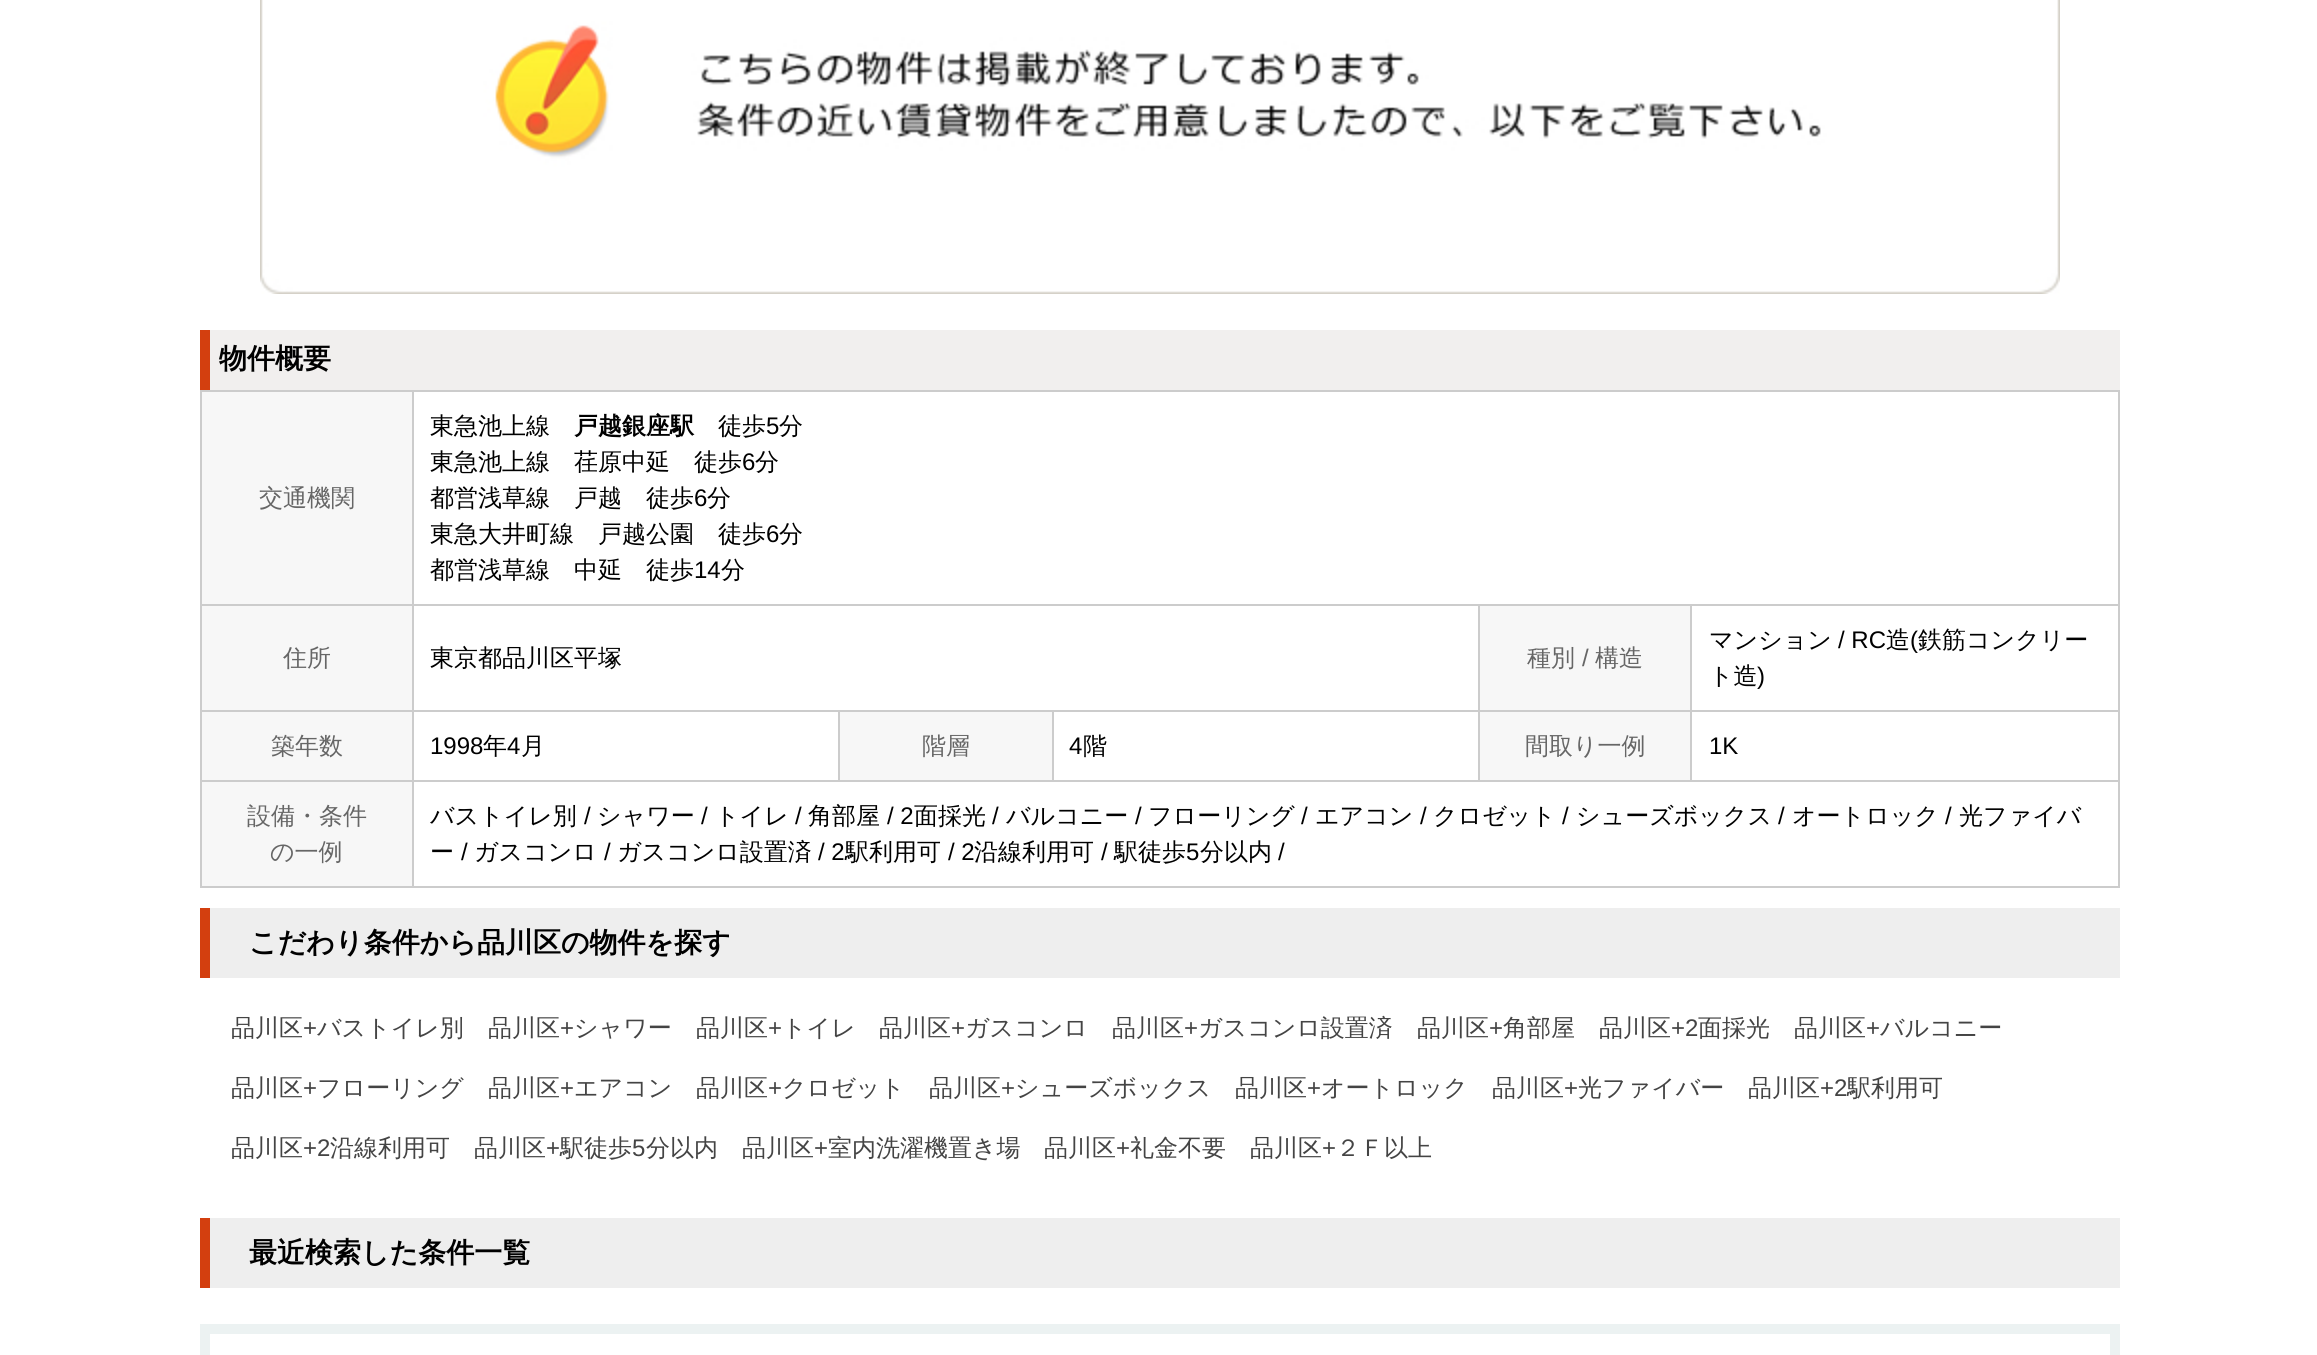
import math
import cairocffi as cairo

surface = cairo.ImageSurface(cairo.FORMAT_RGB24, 2317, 1355)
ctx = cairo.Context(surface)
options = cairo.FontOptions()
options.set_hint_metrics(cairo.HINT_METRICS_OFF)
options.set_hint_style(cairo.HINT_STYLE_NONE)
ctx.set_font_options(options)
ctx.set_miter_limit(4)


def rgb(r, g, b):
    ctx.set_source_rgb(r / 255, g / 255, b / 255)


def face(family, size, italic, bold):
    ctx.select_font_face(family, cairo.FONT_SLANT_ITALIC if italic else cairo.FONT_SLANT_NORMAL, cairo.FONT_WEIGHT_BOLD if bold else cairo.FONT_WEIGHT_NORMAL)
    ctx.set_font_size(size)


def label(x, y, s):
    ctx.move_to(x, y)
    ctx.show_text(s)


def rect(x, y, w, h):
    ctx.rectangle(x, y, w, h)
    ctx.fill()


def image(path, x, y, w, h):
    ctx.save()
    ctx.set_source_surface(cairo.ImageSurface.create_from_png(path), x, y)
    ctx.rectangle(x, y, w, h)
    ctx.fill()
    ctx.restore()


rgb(255, 255, 255)
ctx.paint()
image('image0.png', 260, 0, 1800, 294)
rgb(241, 239, 238)
rect(210, 330, 1910, 60)
rgb(211, 63, 15)
rect(200, 330, 10, 60)
face('WenQuanYi Zen Hei', 28, 0, 1)
rgb(0, 0, 0)
label(219, 368, '物件概要')
rgb(204, 204, 204)
rect(200, 390, 1920, 2)
rect(2118, 390, 2, 498)
rect(200, 886, 1920, 2)
rect(200, 390, 2, 498)
rgb(247, 247, 247)
rect(202, 392, 210, 212)
face('WenQuanYi Zen Hei Medium', 24, 0, 0)
rgb(102, 102, 102)
label(259, 506, '交通機関')
rgb(204, 204, 204)
rect(1690, 604, 430, 2)
rect(1690, 710, 430, 2)
rect(412, 780, 1708, 2)
rect(1690, 710, 2, 72)
rect(1478, 710, 214, 2)
rect(1690, 604, 2, 108)
rect(1478, 604, 214, 2)
rect(1478, 710, 2, 72)
rect(1052, 710, 428, 2)
rect(1478, 604, 2, 108)
rect(412, 604, 1068, 2)
rect(1052, 710, 2, 72)
rect(838, 710, 216, 2)
rect(838, 710, 2, 72)
rect(412, 710, 428, 2)
rect(412, 780, 2, 108)
rect(200, 780, 214, 2)
rect(412, 710, 2, 72)
rect(200, 710, 214, 2)
rect(412, 604, 2, 108)
rect(200, 604, 214, 2)
rect(412, 390, 2, 216)
rgb(0, 0, 0)
label(430, 434, '東急池上線')
face('WenQuanYi Zen Hei', 24, 0, 1)
label(574, 434, '戸越銀座駅')
face('WenQuanYi Zen Hei Medium', 24, 0, 0)
label(718, 434, '徒歩')
face('Liberation Sans', 24, 0, 0)
label(766, 434, '5')
face('WenQuanYi Zen Hei Medium', 24, 0, 0)
label(779, 434, '分')
label(430, 470, '東急池上線　荏原中延　徒歩')
face('Liberation Sans', 24, 0, 0)
label(742, 470, '6')
face('WenQuanYi Zen Hei Medium', 24, 0, 0)
label(755, 470, '分')
label(430, 506, '都営浅草線　戸越　徒歩')
face('Liberation Sans', 24, 0, 0)
label(694, 506, '6')
face('WenQuanYi Zen Hei Medium', 24, 0, 0)
label(707, 506, '分')
label(430, 542, '東急大井町線　戸越公園　徒歩')
face('Liberation Sans', 24, 0, 0)
label(766, 542, '6')
face('WenQuanYi Zen Hei Medium', 24, 0, 0)
label(779, 542, '分')
label(430, 578, '都営浅草線　中延　徒歩')
face('Liberation Sans', 24, 0, 0)
label(694, 578, '14')
face('WenQuanYi Zen Hei Medium', 24, 0, 0)
label(721, 578, '分')
rgb(247, 247, 247)
rect(202, 606, 210, 104)
rgb(102, 102, 102)
label(283, 666, '住所')
rgb(0, 0, 0)
label(430, 666, '東京都品川区平塚')
rgb(247, 247, 247)
rect(1480, 606, 210, 104)
rgb(102, 102, 102)
label(1527, 666, '種別')
face('Liberation Sans', 24, 0, 0)
label(1582, 666, '/')
face('WenQuanYi Zen Hei Medium', 24, 0, 0)
label(1595, 666, '構造')
rgb(0, 0, 0)
label(1709, 648, 'マンション')
face('Liberation Sans', 24, 0, 0)
label(1838, 648, '/ RC')
face('WenQuanYi Zen Hei Medium', 24, 0, 0)
label(1886, 648, '造')
face('Liberation Sans', 24, 0, 0)
label(1910, 648, '(')
face('WenQuanYi Zen Hei Medium', 24, 0, 0)
label(1918, 648, '鉄筋コンクリー')
label(1709, 684, 'ト造')
face('Liberation Sans', 24, 0, 0)
label(1757, 684, ')')
rgb(247, 247, 247)
rect(202, 712, 210, 68)
face('WenQuanYi Zen Hei Medium', 24, 0, 0)
rgb(102, 102, 102)
label(271, 754, '築年数')
face('Liberation Sans', 24, 0, 0)
rgb(0, 0, 0)
label(430, 754, '1998')
face('WenQuanYi Zen Hei Medium', 24, 0, 0)
label(483, 754, '年')
face('Liberation Sans', 24, 0, 0)
label(507, 754, '4')
face('WenQuanYi Zen Hei Medium', 24, 0, 0)
label(521, 754, '月')
rgb(247, 247, 247)
rect(840, 712, 212, 68)
rgb(102, 102, 102)
label(922, 754, '階層')
face('Liberation Sans', 24, 0, 0)
rgb(0, 0, 0)
label(1069, 754, '4')
face('WenQuanYi Zen Hei Medium', 24, 0, 0)
label(1083, 754, '階')
rgb(247, 247, 247)
rect(1480, 712, 210, 68)
rgb(102, 102, 102)
label(1525, 754, '間取り一例')
face('Liberation Sans', 24, 0, 0)
rgb(0, 0, 0)
label(1709, 754, '1K')
rgb(247, 247, 247)
rect(202, 782, 210, 104)
face('WenQuanYi Zen Hei Medium', 24, 0, 0)
rgb(102, 102, 102)
label(247, 824, '設備・条件')
label(270, 860, 'の一例')
rgb(0, 0, 0)
label(430, 824, 'バストイレ別')
face('Liberation Sans', 24, 0, 0)
label(584, 824, '/')
face('WenQuanYi Zen Hei Medium', 24, 0, 0)
label(597, 824, 'シャワー')
face('Liberation Sans', 24, 0, 0)
label(701, 824, '/')
face('WenQuanYi Zen Hei Medium', 24, 0, 0)
label(715, 824, 'トイレ')
face('Liberation Sans', 24, 0, 0)
label(795, 824, '/')
face('WenQuanYi Zen Hei Medium', 24, 0, 0)
label(808, 824, '角部屋')
face('Liberation Sans', 24, 0, 0)
label(887, 824, '/ 2')
face('WenQuanYi Zen Hei Medium', 24, 0, 0)
label(914, 824, '面採光')
face('Liberation Sans', 24, 0, 0)
label(992, 824, '/')
face('WenQuanYi Zen Hei Medium', 24, 0, 0)
label(1006, 824, 'バルコニー')
face('Liberation Sans', 24, 0, 0)
label(1135, 824, '/')
face('WenQuanYi Zen Hei Medium', 24, 0, 0)
label(1148, 824, 'フローリング')
face('Liberation Sans', 24, 0, 0)
label(1301, 824, '/')
face('WenQuanYi Zen Hei Medium', 24, 0, 0)
label(1315, 824, 'エアコン')
face('Liberation Sans', 24, 0, 0)
label(1420, 824, '/')
face('WenQuanYi Zen Hei Medium', 24, 0, 0)
label(1433, 824, 'クロゼット')
face('Liberation Sans', 24, 0, 0)
label(1562, 824, '/')
face('WenQuanYi Zen Hei Medium', 24, 0, 0)
label(1576, 824, 'シューズボックス')
face('Liberation Sans', 24, 0, 0)
label(1778, 824, '/')
face('WenQuanYi Zen Hei Medium', 24, 0, 0)
label(1792, 824, 'オートロック')
face('Liberation Sans', 24, 0, 0)
label(1945, 824, '/')
face('WenQuanYi Zen Hei Medium', 24, 0, 0)
label(1959, 824, '光ファイバ')
label(430, 860, 'ー')
face('Liberation Sans', 24, 0, 0)
label(461, 860, '/')
face('WenQuanYi Zen Hei Medium', 24, 0, 0)
label(474, 860, 'ガスコンロ')
face('Liberation Sans', 24, 0, 0)
label(604, 860, '/')
face('WenQuanYi Zen Hei Medium', 24, 0, 0)
label(617, 860, 'ガスコンロ設置済')
face('Liberation Sans', 24, 0, 0)
label(818, 860, '/ 2')
face('WenQuanYi Zen Hei Medium', 24, 0, 0)
label(845, 860, '駅利用可')
face('Liberation Sans', 24, 0, 0)
label(948, 860, '/ 2')
face('WenQuanYi Zen Hei Medium', 24, 0, 0)
label(974, 860, '沿線利用可')
face('Liberation Sans', 24, 0, 0)
label(1101, 860, '/')
face('WenQuanYi Zen Hei Medium', 24, 0, 0)
label(1114, 860, '駅徒歩')
face('Liberation Sans', 24, 0, 0)
label(1186, 860, '5')
face('WenQuanYi Zen Hei Medium', 24, 0, 0)
label(1200, 860, '分以内')
face('Liberation Sans', 24, 0, 0)
label(1278, 860, '/')
rgb(238, 238, 238)
rect(210, 908, 1910, 70)
rgb(211, 63, 15)
rect(200, 908, 10, 70)
face('WenQuanYi Zen Hei', 28, 0, 1)
rgb(0, 0, 0)
label(249, 952, 'こだわり条件から品川区の物件を探す')
face('WenQuanYi Zen Hei Medium', 24, 0, 0)
rgb(68, 68, 68)
label(231, 1036, '品川区')
face('Liberation Sans', 24, 0, 0)
label(303, 1036, '+')
face('WenQuanYi Zen Hei Medium', 24, 0, 0)
label(317, 1036, 'バストイレ別')
label(488, 1036, '品川区')
face('Liberation Sans', 24, 0, 0)
label(560, 1036, '+')
face('WenQuanYi Zen Hei Medium', 24, 0, 0)
label(574, 1036, 'シャワー')
label(696, 1036, '品川区')
face('Liberation Sans', 24, 0, 0)
label(768, 1036, '+')
face('WenQuanYi Zen Hei Medium', 24, 0, 0)
label(782, 1036, 'トイレ')
label(879, 1036, '品川区')
face('Liberation Sans', 24, 0, 0)
label(951, 1036, '+')
face('WenQuanYi Zen Hei Medium', 24, 0, 0)
label(965, 1036, 'ガスコンロ')
label(1112, 1036, '品川区')
face('Liberation Sans', 24, 0, 0)
label(1184, 1036, '+')
face('WenQuanYi Zen Hei Medium', 24, 0, 0)
label(1198, 1036, 'ガスコンロ設置済')
label(1417, 1036, '品川区')
face('Liberation Sans', 24, 0, 0)
label(1489, 1036, '+')
face('WenQuanYi Zen Hei Medium', 24, 0, 0)
label(1503, 1036, '角部屋')
label(1599, 1036, '品川区')
face('Liberation Sans', 24, 0, 0)
label(1671, 1036, '+2')
face('WenQuanYi Zen Hei Medium', 24, 0, 0)
label(1698, 1036, '面採光')
label(1794, 1036, '品川区')
face('Liberation Sans', 24, 0, 0)
label(1866, 1036, '+')
face('WenQuanYi Zen Hei Medium', 24, 0, 0)
label(1880, 1036, 'バルコニー')
label(231, 1096, '品川区')
face('Liberation Sans', 24, 0, 0)
label(303, 1096, '+')
face('WenQuanYi Zen Hei Medium', 24, 0, 0)
label(317, 1096, 'フローリング')
label(488, 1096, '品川区')
face('Liberation Sans', 24, 0, 0)
label(560, 1096, '+')
face('WenQuanYi Zen Hei Medium', 24, 0, 0)
label(574, 1096, 'エアコン')
label(696, 1096, '品川区')
face('Liberation Sans', 24, 0, 0)
label(768, 1096, '+')
face('WenQuanYi Zen Hei Medium', 24, 0, 0)
label(782, 1096, 'クロゼット')
label(929, 1096, '品川区')
face('Liberation Sans', 24, 0, 0)
label(1001, 1096, '+')
face('WenQuanYi Zen Hei Medium', 24, 0, 0)
label(1015, 1096, 'シューズボックス')
label(1235, 1096, '品川区')
face('Liberation Sans', 24, 0, 0)
label(1307, 1096, '+')
face('WenQuanYi Zen Hei Medium', 24, 0, 0)
label(1321, 1096, 'オートロック')
label(1492, 1096, '品川区')
face('Liberation Sans', 24, 0, 0)
label(1564, 1096, '+')
face('WenQuanYi Zen Hei Medium', 24, 0, 0)
label(1578, 1096, '光ファイバー')
label(1748, 1096, '品川区')
face('Liberation Sans', 24, 0, 0)
label(1820, 1096, '+2')
face('WenQuanYi Zen Hei Medium', 24, 0, 0)
label(1847, 1096, '駅利用可')
label(231, 1156, '品川区')
face('Liberation Sans', 24, 0, 0)
label(303, 1156, '+2')
face('WenQuanYi Zen Hei Medium', 24, 0, 0)
label(330, 1156, '沿線利用可')
label(474, 1156, '品川区')
face('Liberation Sans', 24, 0, 0)
label(546, 1156, '+')
face('WenQuanYi Zen Hei Medium', 24, 0, 0)
label(560, 1156, '駅徒歩')
face('Liberation Sans', 24, 0, 0)
label(632, 1156, '5')
face('WenQuanYi Zen Hei Medium', 24, 0, 0)
label(646, 1156, '分以内')
label(742, 1156, '品川区')
face('Liberation Sans', 24, 0, 0)
label(814, 1156, '+')
face('WenQuanYi Zen Hei Medium', 24, 0, 0)
label(828, 1156, '室内洗濯機置き場')
label(1044, 1156, '品川区')
face('Liberation Sans', 24, 0, 0)
label(1116, 1156, '+')
face('WenQuanYi Zen Hei Medium', 24, 0, 0)
label(1130, 1156, '礼金不要')
label(1250, 1156, '品川区')
face('Liberation Sans', 24, 0, 0)
label(1322, 1156, '+')
face('WenQuanYi Zen Hei Medium', 24, 0, 0)
label(1336, 1156, '２Ｆ以上')
rgb(238, 238, 238)
rect(210, 1218, 1910, 70)
rgb(211, 63, 15)
rect(200, 1218, 10, 70)
face('WenQuanYi Zen Hei', 28, 0, 1)
rgb(0, 0, 0)
label(249, 1262, '最近検索した条件一覧')
ctx.rectangle(205, 1329, 1910, 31)
rgb(236, 242, 242)
ctx.set_line_width(10)
ctx.stroke()
surface.write_to_png('render.png')
